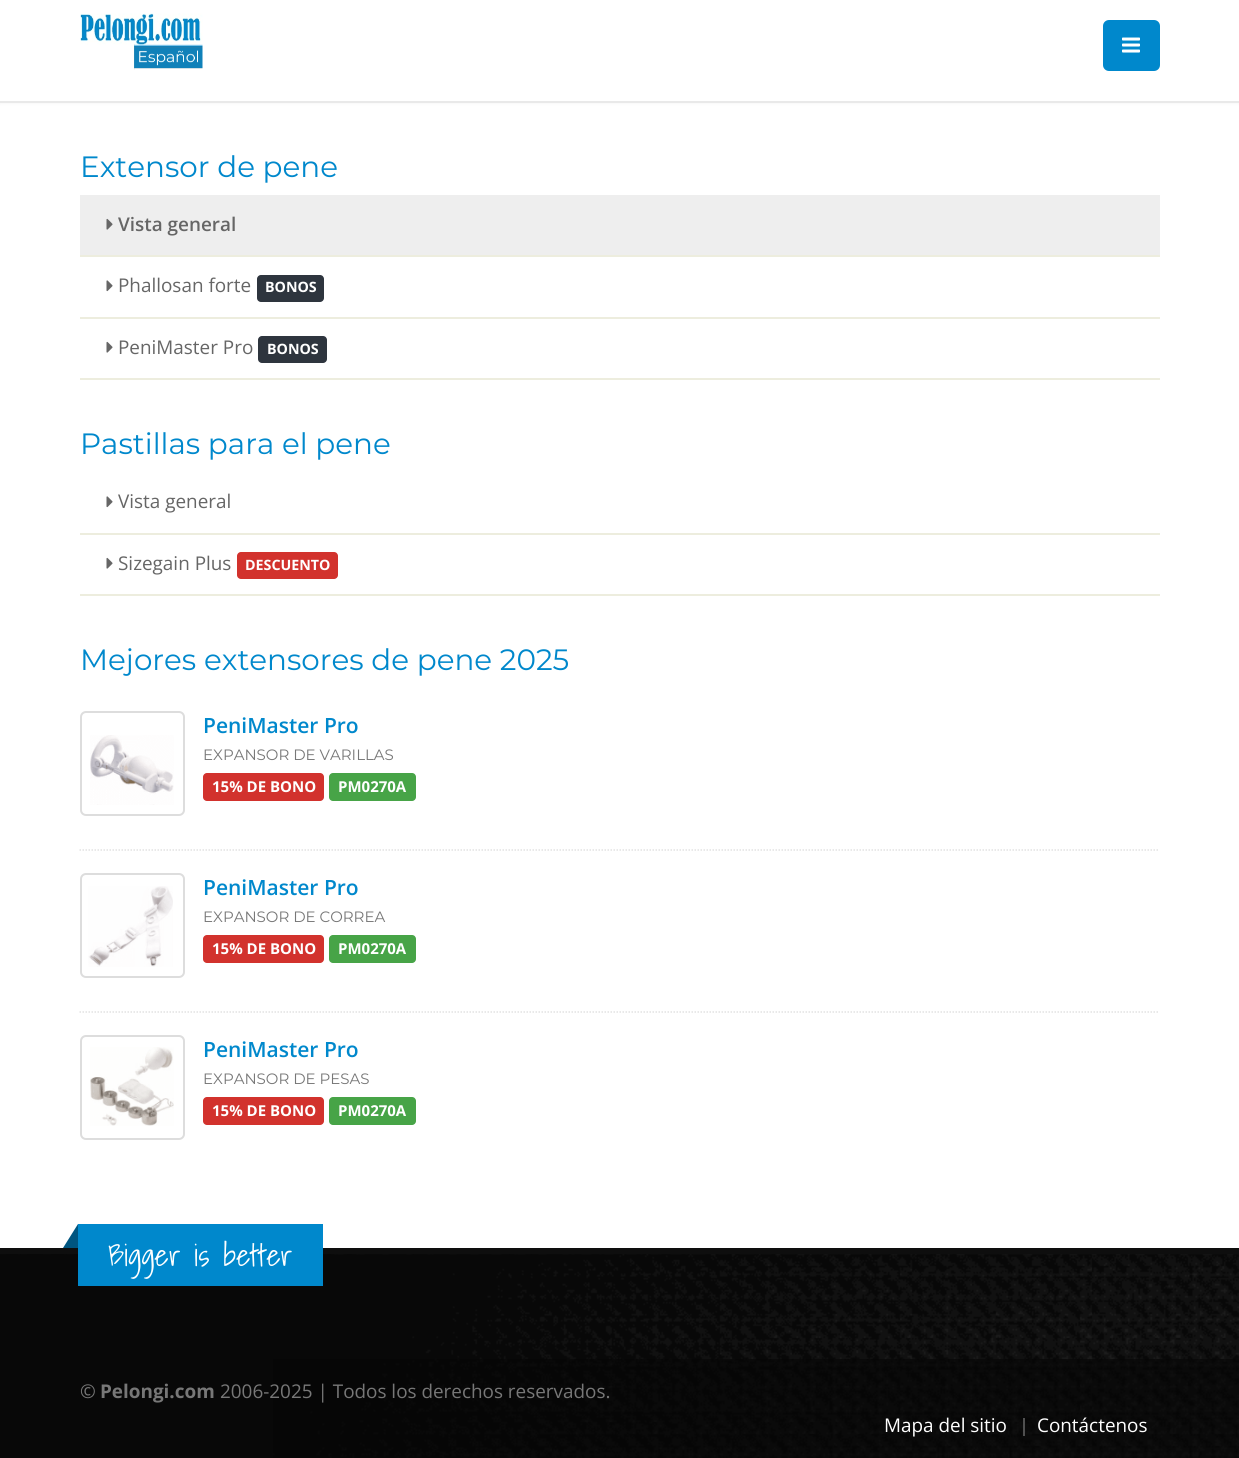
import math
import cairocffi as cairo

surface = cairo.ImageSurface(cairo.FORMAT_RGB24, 1239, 1458)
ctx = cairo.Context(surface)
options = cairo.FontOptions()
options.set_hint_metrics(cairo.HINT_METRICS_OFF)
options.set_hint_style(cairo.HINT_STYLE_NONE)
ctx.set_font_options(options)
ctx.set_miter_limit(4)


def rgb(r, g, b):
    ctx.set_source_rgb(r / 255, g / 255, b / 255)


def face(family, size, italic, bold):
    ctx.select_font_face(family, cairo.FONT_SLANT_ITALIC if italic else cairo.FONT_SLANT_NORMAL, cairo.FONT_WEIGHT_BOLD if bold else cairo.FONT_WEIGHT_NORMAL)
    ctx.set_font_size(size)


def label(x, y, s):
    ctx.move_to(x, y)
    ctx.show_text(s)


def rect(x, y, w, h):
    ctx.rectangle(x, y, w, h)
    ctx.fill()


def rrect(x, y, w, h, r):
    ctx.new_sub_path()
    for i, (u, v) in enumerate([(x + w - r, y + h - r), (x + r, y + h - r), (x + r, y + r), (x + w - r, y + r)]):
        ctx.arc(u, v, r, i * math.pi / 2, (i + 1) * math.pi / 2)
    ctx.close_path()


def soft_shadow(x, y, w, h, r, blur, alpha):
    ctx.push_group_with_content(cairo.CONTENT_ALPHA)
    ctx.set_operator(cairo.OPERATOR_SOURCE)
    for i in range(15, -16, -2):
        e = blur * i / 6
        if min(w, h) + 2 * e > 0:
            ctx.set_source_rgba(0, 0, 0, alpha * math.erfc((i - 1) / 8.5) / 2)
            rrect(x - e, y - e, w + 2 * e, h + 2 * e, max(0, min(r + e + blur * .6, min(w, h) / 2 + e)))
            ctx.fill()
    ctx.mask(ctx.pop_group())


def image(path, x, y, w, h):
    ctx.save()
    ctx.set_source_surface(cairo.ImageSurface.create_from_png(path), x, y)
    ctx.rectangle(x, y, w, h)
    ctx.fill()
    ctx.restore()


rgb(255, 255, 255)
ctx.paint()
rgb(0, 0, 0)
soft_shadow(0, -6, 1239, 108, 0, 2, 0.1)
rgb(255, 255, 255)
rect(0, 0, 1239, 101)
rgb(233, 233, 233)
rect(0, 101, 1239, 2)
image('image0.png', 80, 13, 123, 57)
rgb(0, 136, 204)
rrect(1103, 20, 57, 51, 6)
ctx.fill()
image('image1.png', 1122, 37, 18, 16)
face('Montserrat', 29.4, 0, 0)
label(80, 177, 'Extensor de pene')
rgb(238, 238, 238)
rect(80, 195, 1080, 60)
rgb(237, 237, 222)
rect(80, 255, 1080, 2)
image('image2.png', 106, 218, 7, 12)
face('Open Sans SemiBold', 18.9, 0, 0)
rgb(102, 102, 102)
label(118, 231, 'Vista general')
rgb(237, 237, 222)
rect(80, 317, 1080, 2)
image('image3.png', 106, 280, 7, 12)
face('Open Sans', 18.9, 0, 0)
rgb(102, 102, 102)
label(118, 292, 'Phallosan forte')
rgb(46, 53, 62)
rrect(257, 275, 67, 27, 4)
ctx.fill()
face('Open Sans', 14.25, 0, 1)
rgb(255, 255, 255)
label(265, 292, 'BONOS')
rgb(237, 237, 222)
rect(80, 378, 1080, 2)
image('image4.png', 106, 341, 7, 12)
face('Open Sans', 18.9, 0, 0)
rgb(102, 102, 102)
label(118, 354, 'PeniMaster Pro')
rgb(46, 53, 62)
rrect(258, 336, 69, 27, 4)
ctx.fill()
face('Open Sans', 14.25, 0, 1)
rgb(255, 255, 255)
label(267, 354, 'BONOS')
face('Montserrat', 29.4, 0, 0)
rgb(0, 136, 204)
label(80, 454, 'Pastillas para el pene')
rgb(237, 237, 222)
rect(80, 533, 1080, 2)
image('image3.png', 106, 496, 7, 12)
face('Open Sans', 18.9, 0, 0)
rgb(102, 102, 102)
label(118, 508, 'Vista general')
rgb(237, 237, 222)
rect(80, 594, 1080, 2)
image('image4.png', 106, 557, 7, 12)
rgb(102, 102, 102)
label(118, 570, 'Sizegain Plus')
rgb(210, 50, 45)
rrect(237, 552, 101, 27, 4)
ctx.fill()
face('Open Sans', 14.25, 0, 1)
rgb(255, 255, 255)
label(245, 570, 'DESCUENTO')
face('Montserrat', 29.4, 0, 0)
rgb(0, 136, 204)
label(80, 670, 'Mejores extensores de pene 2025')
ctx.new_path()
ctx.move_to(79.5, 850)
ctx.line_to(1159.5, 850)
rgb(226, 226, 226)
ctx.set_line_width(1.5)
ctx.set_dash([1.5, 1.5])
ctx.stroke()
rrect(81, 712, 103, 103, 5)
rgb(221, 221, 221)
ctx.set_line_width(2)
ctx.set_dash([])
ctx.stroke()
image('image5.png', 90, 735, 84, 70)
face('Open Sans SemiBold', 21, 0, 0)
rgb(0, 136, 204)
label(203, 733, 'PeniMaster Pro')
face('Montserrat', 15, 0, 0)
rgb(119, 119, 119)
label(203, 760, 'EXPANSOR DE VARILLAS')
rgb(210, 50, 45)
rrect(203, 773, 121, 28, 4)
ctx.fill()
face('Open Sans', 15, 0, 1)
rgb(255, 255, 255)
label(212, 792, '15% DE BONO')
rgb(71, 164, 71)
rrect(329, 773, 87, 28, 4)
ctx.fill()
rgb(255, 255, 255)
label(338, 792, 'PM0270A')
ctx.new_path()
ctx.move_to(79.5, 1012)
ctx.line_to(1159.5, 1012)
rgb(226, 226, 226)
ctx.set_line_width(1.5)
ctx.set_dash([1.5, 1.5])
ctx.stroke()
rrect(81, 874, 103, 103, 5)
rgb(221, 221, 221)
ctx.set_line_width(2)
ctx.set_dash([])
ctx.stroke()
image('image6.png', 88, 886, 85, 81)
face('Open Sans SemiBold', 21, 0, 0)
rgb(0, 136, 204)
label(203, 895, 'PeniMaster Pro')
face('Montserrat', 15, 0, 0)
rgb(119, 119, 119)
label(203, 922, 'EXPANSOR DE CORREA')
rgb(210, 50, 45)
rrect(203, 935, 121, 28, 4)
ctx.fill()
face('Open Sans', 15, 0, 1)
rgb(255, 255, 255)
label(212, 954, '15% DE BONO')
rgb(71, 164, 71)
rrect(329, 935, 87, 28, 4)
ctx.fill()
rgb(255, 255, 255)
label(338, 954, 'PM0270A')
rrect(81, 1036, 103, 103, 5)
rgb(221, 221, 221)
ctx.stroke()
image('image7.png', 90, 1047, 84, 79)
face('Open Sans SemiBold', 21, 0, 0)
rgb(0, 136, 204)
label(203, 1057, 'PeniMaster Pro')
face('Montserrat', 15, 0, 0)
rgb(119, 119, 119)
label(203, 1084, 'EXPANSOR DE PESAS')
rgb(210, 50, 45)
rrect(203, 1097, 121, 28, 4)
ctx.fill()
face('Open Sans', 15, 0, 1)
rgb(255, 255, 255)
label(212, 1116, '15% DE BONO')
rgb(71, 164, 71)
rrect(329, 1097, 87, 28, 4)
ctx.fill()
rgb(255, 255, 255)
label(338, 1116, 'PM0270A')
image('image8.png', 0, 1254, 1239, 204)
rgb(14, 14, 14)
rect(0, 1248, 1239, 6)
rgb(0, 136, 204)
rect(78, 1224, 245, 62)
rgb(0, 85, 128)
ctx.new_path()
ctx.move_to(78, 1224)
ctx.line_to(78, 1248)
ctx.line_to(63, 1248)
ctx.close_path()
ctx.fill()
face('Shadows Into Light', 30.25, 0, 0)
rgb(255, 255, 255)
label(108, 1266, 'Bigger is better')
ctx.set_source_rgba(0.024, 0.024, 0.024, 0.6)
rect(273, 1359, 966, 99)
face('Open Sans', 18.9, 0, 0)
rgb(119, 119, 119)
label(80, 1398, '©')
face('Open Sans', 18.9, 0, 1)
label(100, 1398, 'Pelongi.com')
face('Open Sans', 18.9, 0, 0)
label(220, 1398, '2006-2025 | Todos los derechos reservados.')
rgb(255, 255, 255)
label(884, 1432, 'Mapa del sitio')
rgb(80, 80, 80)
rect(1023, 1418, 2, 18)
rgb(255, 255, 255)
label(1037, 1432, 'Contáctenos')
surface.write_to_png('render.png')
